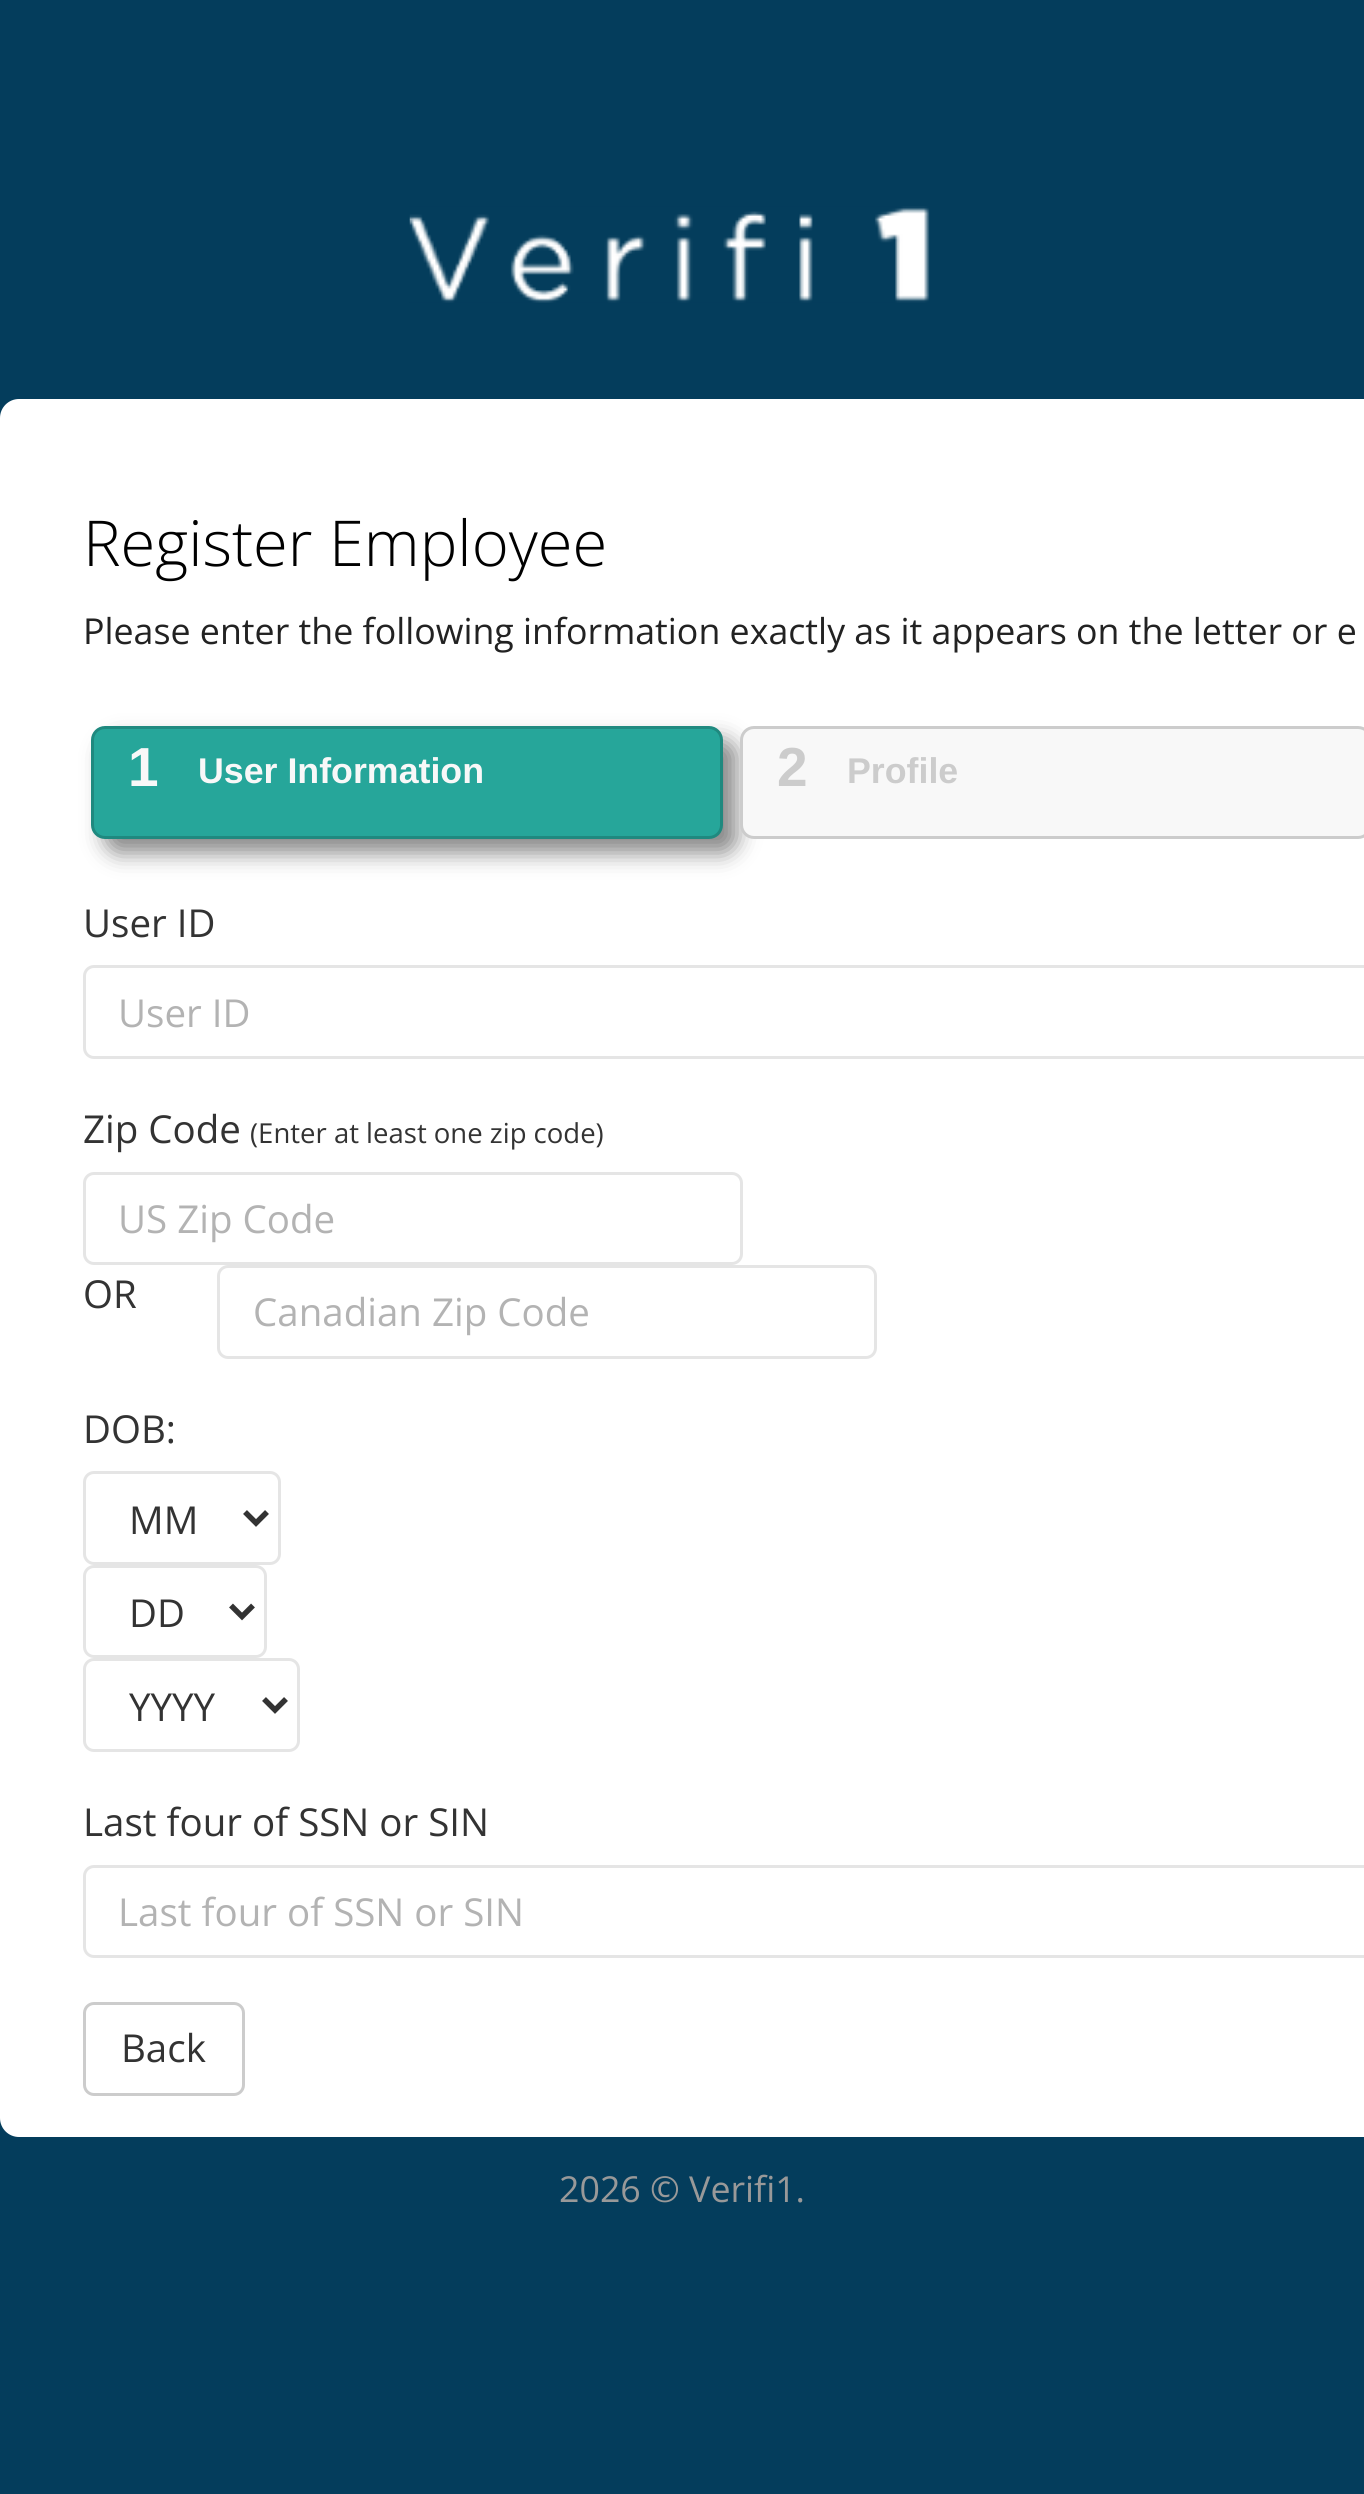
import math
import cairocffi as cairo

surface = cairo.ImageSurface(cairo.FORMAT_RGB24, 1364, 2494)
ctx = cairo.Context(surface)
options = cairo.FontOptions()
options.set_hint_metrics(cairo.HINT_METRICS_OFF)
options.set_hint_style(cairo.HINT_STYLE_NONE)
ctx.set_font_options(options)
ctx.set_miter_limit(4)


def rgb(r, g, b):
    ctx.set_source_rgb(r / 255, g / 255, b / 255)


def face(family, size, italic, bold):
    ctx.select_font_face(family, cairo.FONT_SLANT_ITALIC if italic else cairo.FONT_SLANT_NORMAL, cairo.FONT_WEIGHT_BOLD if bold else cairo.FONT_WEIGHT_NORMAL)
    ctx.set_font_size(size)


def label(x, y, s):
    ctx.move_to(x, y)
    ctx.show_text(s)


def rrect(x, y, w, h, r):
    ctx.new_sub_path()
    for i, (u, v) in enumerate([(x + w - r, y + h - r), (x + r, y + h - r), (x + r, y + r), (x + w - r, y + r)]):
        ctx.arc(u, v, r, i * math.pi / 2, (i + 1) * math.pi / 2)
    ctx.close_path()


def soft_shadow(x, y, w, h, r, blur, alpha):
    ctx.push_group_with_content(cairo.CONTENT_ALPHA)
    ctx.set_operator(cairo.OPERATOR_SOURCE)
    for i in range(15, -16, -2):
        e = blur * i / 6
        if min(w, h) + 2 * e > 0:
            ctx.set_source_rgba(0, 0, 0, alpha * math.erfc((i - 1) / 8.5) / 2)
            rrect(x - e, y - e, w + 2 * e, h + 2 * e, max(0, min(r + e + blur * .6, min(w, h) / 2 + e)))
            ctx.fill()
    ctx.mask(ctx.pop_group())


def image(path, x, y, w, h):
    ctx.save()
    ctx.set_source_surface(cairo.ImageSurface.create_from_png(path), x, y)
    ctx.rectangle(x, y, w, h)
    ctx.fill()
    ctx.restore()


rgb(4, 61, 92)
ctx.paint()
image('image0.png', 409, 206, 521, 97)
rgb(255, 255, 255)
rrect(0, 399, 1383, 1738, 19)
ctx.fill()
face('Open Sans Light', 63.25, 0, 0)
rgb(0, 0, 0)
label(83, 566, 'Register Employee')
face('Open Sans', 35.75, 0, 0)
rgb(34, 34, 34)
label(83, 644, 'Please enter the following information exactly as it appears on the letter or e')
rgb(136, 136, 136)
soft_shadow(105, 740, 632, 113, 14, 11, 1)
rgb(38, 166, 154)
rrect(92.5, 727.5, 629, 110, 12.5)
ctx.fill_preserve()
rgb(31, 137, 127)
ctx.set_line_width(3)
ctx.stroke()
face('Liberation Sans', 55, 0, 1)
rgb(248, 248, 248)
label(128, 786, '1')
face('Liberation Sans', 35.75, 0, 1)
label(198, 783, 'User Information')
rrect(741.5, 727.5, 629, 110, 12.5)
ctx.fill_preserve()
rgb(204, 204, 204)
ctx.stroke()
face('Liberation Sans', 55, 0, 1)
label(777, 786, '2')
face('Liberation Sans', 35.75, 0, 1)
label(847, 783, 'Profile')
face('Open Sans', 38.5, 0, 0)
rgb(51, 51, 51)
label(83, 937, 'User ID')
rrect(84.5, 966.5, 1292, 91, 9.5)
rgb(229, 229, 229)
ctx.stroke()
rgb(179, 179, 179)
label(118, 1027, 'User ID')
rgb(51, 51, 51)
label(83, 1143, 'Zip Code')
face('Open Sans', 27.5, 0, 0)
label(250, 1143, '(Enter at least one zip code)')
rrect(84.5, 1173.5, 657, 90, 9.5)
rgb(229, 229, 229)
ctx.stroke()
face('Open Sans', 38.5, 0, 0)
rgb(179, 179, 179)
label(118, 1233, 'US Zip Code')
rgb(51, 51, 51)
label(83, 1308, 'OR')
rrect(218.5, 1266.5, 657, 91, 9.5)
rgb(229, 229, 229)
ctx.stroke()
rgb(179, 179, 179)
label(253, 1326, 'Canadian Zip Code')
rgb(51, 51, 51)
label(83, 1443, 'DOB:')
rrect(84.5, 1472.5, 195, 91, 9.5)
rgb(229, 229, 229)
ctx.stroke()
ctx.new_path()
ctx.move_to(245, 1512)
ctx.line_to(256, 1523)
ctx.line_to(267, 1512)
rgb(51, 51, 51)
ctx.set_line_width(5.5)
ctx.stroke()
label(129, 1534, 'MM')
rrect(84.5, 1566.5, 181, 90, 9.5)
rgb(229, 229, 229)
ctx.set_line_width(3)
ctx.stroke()
ctx.new_path()
ctx.move_to(231, 1605.5)
ctx.line_to(242, 1616.5)
ctx.line_to(253, 1605.5)
rgb(51, 51, 51)
ctx.set_line_width(5.5)
ctx.stroke()
label(129, 1627, 'DD')
rrect(84.5, 1659.5, 214, 91, 9.5)
rgb(229, 229, 229)
ctx.set_line_width(3)
ctx.stroke()
ctx.new_path()
ctx.move_to(264, 1699)
ctx.line_to(275, 1710)
ctx.line_to(286, 1699)
rgb(51, 51, 51)
ctx.set_line_width(5.5)
ctx.stroke()
label(129, 1721, 'YYYY')
label(83, 1836, 'Last four of SSN or SIN')
rrect(84.5, 1866.5, 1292, 90, 9.5)
rgb(229, 229, 229)
ctx.set_line_width(3)
ctx.stroke()
rgb(179, 179, 179)
label(118, 1926, 'Last four of SSN or SIN')
rrect(84.5, 2003.5, 159, 91, 9.5)
rgb(204, 204, 204)
ctx.stroke()
rgb(51, 51, 51)
label(121, 2062, 'Back')
face('Open Sans', 35.75, 0, 0)
rgb(153, 153, 153)
label(559, 2202, '2026 © Verifi1.')
surface.write_to_png('render.png')
